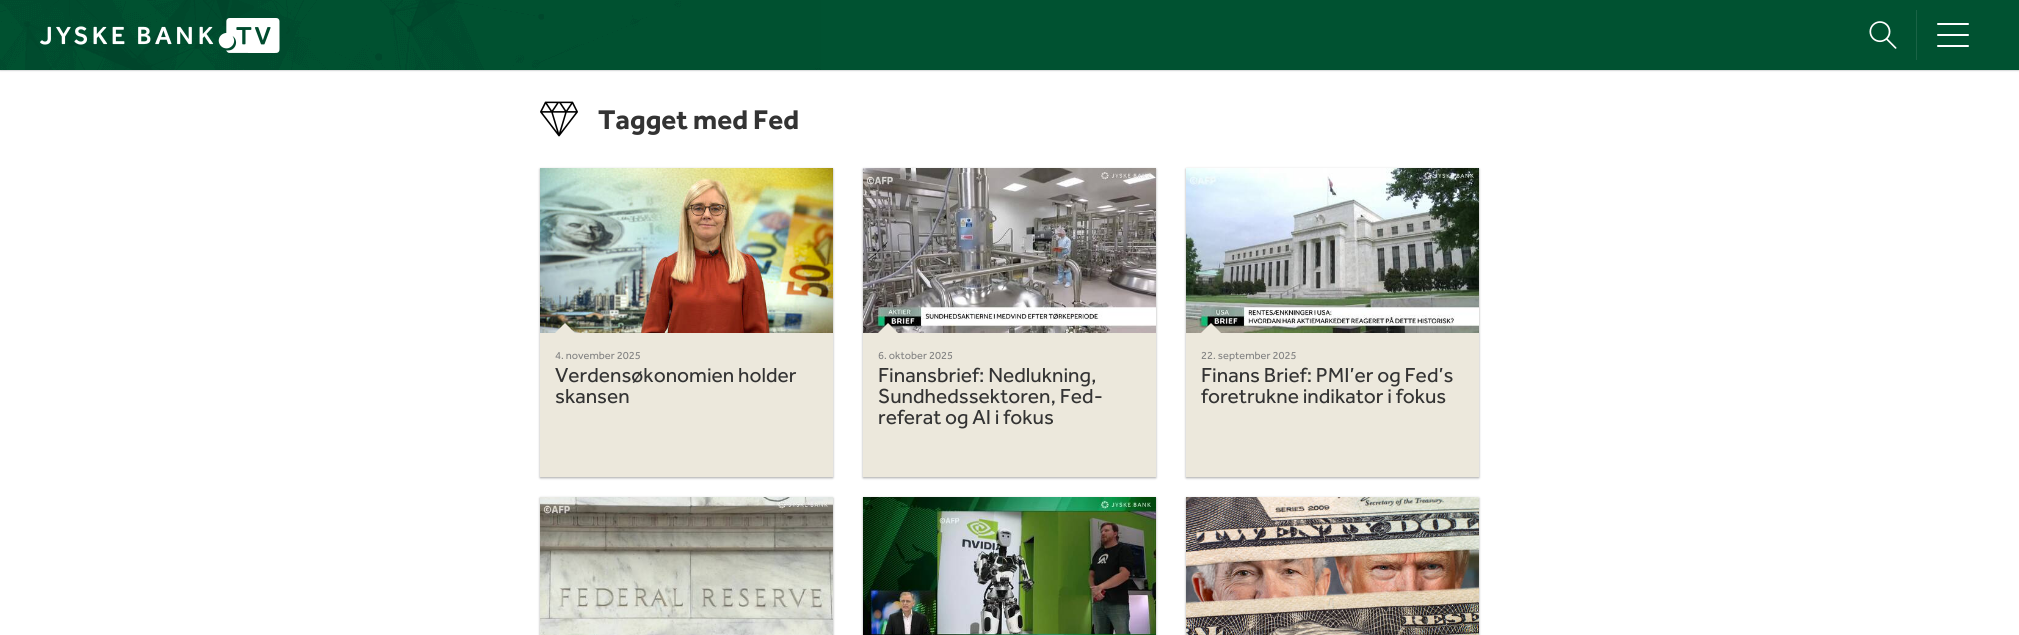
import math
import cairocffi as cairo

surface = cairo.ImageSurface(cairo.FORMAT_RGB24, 2019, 635)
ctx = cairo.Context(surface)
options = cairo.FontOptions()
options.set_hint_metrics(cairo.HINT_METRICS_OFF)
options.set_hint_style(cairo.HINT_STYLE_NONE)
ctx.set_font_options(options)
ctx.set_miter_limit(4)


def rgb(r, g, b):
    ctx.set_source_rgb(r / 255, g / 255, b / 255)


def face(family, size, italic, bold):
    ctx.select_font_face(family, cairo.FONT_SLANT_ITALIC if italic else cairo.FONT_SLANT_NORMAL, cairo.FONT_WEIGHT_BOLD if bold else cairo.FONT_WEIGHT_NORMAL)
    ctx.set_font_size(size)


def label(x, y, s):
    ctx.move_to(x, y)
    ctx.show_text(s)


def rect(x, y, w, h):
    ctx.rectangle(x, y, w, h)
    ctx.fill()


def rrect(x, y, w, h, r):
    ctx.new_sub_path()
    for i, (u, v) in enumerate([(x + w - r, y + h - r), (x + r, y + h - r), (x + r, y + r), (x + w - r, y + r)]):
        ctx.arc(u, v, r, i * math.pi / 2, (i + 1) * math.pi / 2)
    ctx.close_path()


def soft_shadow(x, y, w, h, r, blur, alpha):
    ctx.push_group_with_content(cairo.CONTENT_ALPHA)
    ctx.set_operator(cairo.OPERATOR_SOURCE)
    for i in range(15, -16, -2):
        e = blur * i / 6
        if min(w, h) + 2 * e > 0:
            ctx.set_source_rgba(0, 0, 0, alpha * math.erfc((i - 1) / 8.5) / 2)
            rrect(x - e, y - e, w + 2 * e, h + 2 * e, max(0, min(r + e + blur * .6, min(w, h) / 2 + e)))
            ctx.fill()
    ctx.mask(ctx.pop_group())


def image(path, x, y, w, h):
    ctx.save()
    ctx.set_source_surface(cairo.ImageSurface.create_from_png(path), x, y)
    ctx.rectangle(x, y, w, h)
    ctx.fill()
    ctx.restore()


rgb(255, 255, 255)
ctx.paint()
rgb(155, 157, 160)
soft_shadow(0, 0, 2019, 70, 0, 1, 1)
rgb(0, 82, 49)
rect(821, 0, 1198, 70)
image('image0.png', 0, 0, 821, 70)
image('image1.png', 40, 18, 240, 35)
image('image2.png', 1869, 21, 28, 28)
rgb(26, 99, 70)
rect(1916, 10, 1, 50)
rgb(255, 255, 255)
rrect(1937, 23, 32, 2, 1)
ctx.fill()
rrect(1937, 34, 32, 2, 1)
ctx.fill()
rrect(1937, 45, 32, 2, 1)
ctx.fill()
image('image3.png', 540, 101, 38, 36)
face('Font', 28, 0, 1)
rgb(51, 51, 51)
label(598, 129, 'Tagget med Fed')
rgb(0, 0, 0)
soft_shadow(540, 169, 293, 309, 0, 1, 0.24)
soft_shadow(540, 169, 293, 309, 0, 1.5, 0.12)
rgb(236, 232, 220)
rect(540, 333, 293, 144)
image('image4.png', 540, 168, 293, 165)
ctx.new_path()
ctx.move_to(575, 333)
ctx.line_to(555, 333)
ctx.line_to(565, 323)
ctx.close_path()
ctx.fill()
face('Font', 11, 0, 0)
rgb(130, 130, 130)
label(555, 359, '4. november 2025')
face('Font', 21, 0, 0)
rgb(51, 51, 51)
label(555, 382, 'Verdensøkonomien holder')
label(555, 403, 'skansen')
rgb(0, 0, 0)
soft_shadow(863, 169, 293, 309, 0, 1, 0.24)
soft_shadow(863, 169, 293, 309, 0, 1.5, 0.12)
rgb(236, 232, 220)
rect(863, 333, 293, 144)
image('image5.png', 863, 168, 293, 165)
ctx.new_path()
ctx.move_to(898, 333)
ctx.line_to(878, 333)
ctx.line_to(888, 323)
ctx.close_path()
ctx.fill()
face('Font', 11, 0, 0)
rgb(130, 130, 130)
label(878, 359, '6. oktober 2025')
face('Font', 21, 0, 0)
rgb(51, 51, 51)
label(878, 382, 'Finansbrief: Nedlukning,')
label(878, 403, 'Sundhedssektoren, Fed-')
label(878, 424, 'referat og AI i fokus')
rgb(0, 0, 0)
soft_shadow(1186, 169, 293, 309, 0, 1, 0.24)
soft_shadow(1186, 169, 293, 309, 0, 1.5, 0.12)
rgb(236, 232, 220)
rect(1186, 333, 293, 144)
image('image6.png', 1186, 168, 293, 165)
ctx.new_path()
ctx.move_to(1221, 333)
ctx.line_to(1201, 333)
ctx.line_to(1211, 323)
ctx.close_path()
ctx.fill()
face('Font', 11, 0, 0)
rgb(130, 130, 130)
label(1201, 359, '22. september 2025')
face('Font', 21, 0, 0)
rgb(51, 51, 51)
label(1201, 382, 'Finans Brief: PMI’er og Fed’s')
label(1201, 403, 'foretrukne indikator i fokus')
rgb(0, 0, 0)
soft_shadow(540, 498, 293, 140, 0, 1, 0.24)
soft_shadow(540, 498, 293, 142, 0, 1.5, 0.12)
image('image7.png', 540, 497, 293, 138)
soft_shadow(863, 498, 293, 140, 0, 1, 0.24)
soft_shadow(863, 498, 293, 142, 0, 1.5, 0.12)
image('image8.png', 863, 497, 293, 138)
soft_shadow(1186, 498, 293, 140, 0, 1, 0.24)
soft_shadow(1186, 498, 293, 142, 0, 1.5, 0.12)
image('image9.png', 1186, 497, 293, 138)
surface.write_to_png('render.png')
